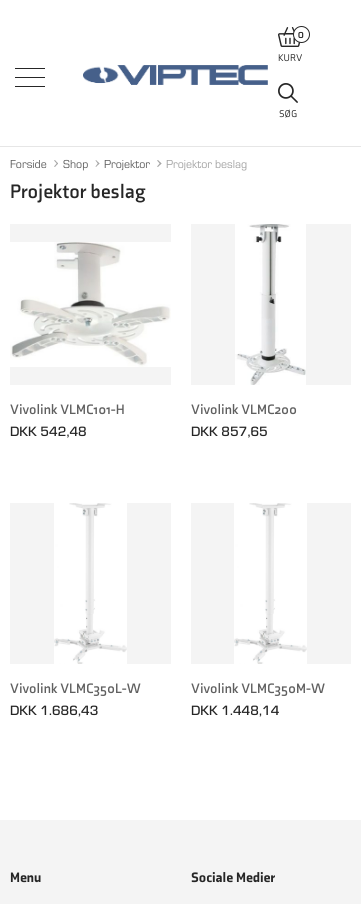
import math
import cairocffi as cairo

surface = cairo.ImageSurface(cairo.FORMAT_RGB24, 361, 904)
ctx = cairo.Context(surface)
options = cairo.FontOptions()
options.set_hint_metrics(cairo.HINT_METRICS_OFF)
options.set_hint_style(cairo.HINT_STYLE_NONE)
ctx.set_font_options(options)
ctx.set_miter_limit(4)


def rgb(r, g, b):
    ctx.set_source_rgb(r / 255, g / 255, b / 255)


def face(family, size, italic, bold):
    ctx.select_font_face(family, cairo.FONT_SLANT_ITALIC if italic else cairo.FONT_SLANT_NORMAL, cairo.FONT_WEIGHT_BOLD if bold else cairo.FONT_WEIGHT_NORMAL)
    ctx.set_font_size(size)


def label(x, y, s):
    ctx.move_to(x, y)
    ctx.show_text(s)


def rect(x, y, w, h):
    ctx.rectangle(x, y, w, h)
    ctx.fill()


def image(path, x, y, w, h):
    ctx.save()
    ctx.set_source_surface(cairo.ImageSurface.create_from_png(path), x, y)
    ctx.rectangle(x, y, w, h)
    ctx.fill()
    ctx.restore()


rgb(255, 255, 255)
ctx.paint()
rgb(230, 230, 230)
rect(0, 146, 361, 1)
rgb(38, 38, 38)
rect(15, 68, 30, 1)
rect(15, 77, 30, 1)
rect(15, 86, 30, 1)
image('image0.png', 83, 65, 185, 20)
image('image1.png', 278, 27, 23, 20)
rgb(255, 255, 255)
ctx.arc(301.5, 34.5, 8, 0, 2 * math.pi)
ctx.fill_preserve()
rgb(38, 38, 38)
ctx.set_line_width(1)
ctx.stroke()
face('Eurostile', 9, 0, 1)
label(298, 38, '0')
face('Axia', 10, 0, 0)
label(278, 61, 'KURV')
image('image2.png', 278, 83, 20, 20)
label(279, 117, 'SØG')
face('Eurostile', 12, 0, 0)
rgb(96, 96, 96)
label(10, 168, 'Forside')
label(63, 168, 'Shop')
rgb(166, 166, 166)
ctx.new_path()
ctx.move_to(55, 160)
ctx.line_to(58, 163.5)
ctx.line_to(57.5, 164.5)
ctx.line_to(54, 160.5)
ctx.close_path()
ctx.fill()
ctx.new_path()
ctx.move_to(54, 166.5)
ctx.line_to(57.5, 162.5)
ctx.line_to(58, 163.5)
ctx.line_to(55, 167)
ctx.close_path()
ctx.move_to(96, 160)
ctx.line_to(99.5, 163.5)
ctx.line_to(98.5, 164.5)
ctx.line_to(95.5, 160.5)
ctx.close_path()
ctx.fill()
rgb(96, 96, 96)
label(104, 168, 'Projektor')
rgb(166, 166, 166)
ctx.new_path()
ctx.move_to(158, 160)
ctx.line_to(161.5, 163.5)
ctx.line_to(160.5, 164.5)
ctx.line_to(157, 160.5)
ctx.close_path()
ctx.fill()
ctx.new_path()
ctx.move_to(157, 166.5)
ctx.line_to(160.5, 162.5)
ctx.line_to(161.5, 163.5)
ctx.line_to(158, 167)
ctx.close_path()
ctx.fill()
rgb(163, 163, 163)
label(166, 168, 'Projektor beslag')
rgb(166, 166, 166)
ctx.new_path()
ctx.move_to(95.5, 166.5)
ctx.line_to(98.5, 162.5)
ctx.line_to(99.5, 163.5)
ctx.line_to(96, 167)
ctx.close_path()
ctx.fill()
face('Axia', 20, 0, 1)
rgb(38, 38, 38)
label(10, 198, 'Projektor beslag')
rgb(244, 244, 244)
rect(10, 224, 161, 161)
image('image3.png', 10, 242, 161, 125)
face('Axia', 14, 0, 1)
rgb(96, 96, 96)
label(10, 414, 'Vivolink VLMC101-H')
face('Eurostile Medium', 14, 0, 0)
rgb(38, 38, 38)
label(10, 436, 'DKK 542,48')
rgb(244, 244, 244)
rect(191, 224, 160, 161)
image('image4.png', 235, 224, 71, 161)
face('Axia', 14, 0, 1)
rgb(96, 96, 96)
label(191, 414, 'Vivolink VLMC200')
face('Eurostile Medium', 14, 0, 0)
rgb(38, 38, 38)
label(191, 436, 'DKK 857,65')
rgb(244, 244, 244)
rect(10, 503, 161, 161)
image('image5.png', 54, 503, 73, 161)
face('Axia', 14, 0, 1)
rgb(96, 96, 96)
label(10, 693, 'Vivolink VLMC350L-W')
face('Eurostile Medium', 14, 0, 0)
rgb(38, 38, 38)
label(10, 715, 'DKK 1.686,43')
rgb(244, 244, 244)
rect(191, 503, 160, 161)
image('image6.png', 234, 503, 73, 161)
face('Axia', 14, 0, 1)
rgb(96, 96, 96)
label(191, 693, 'Vivolink VLMC350M-W')
face('Eurostile Medium', 14, 0, 0)
rgb(38, 38, 38)
label(191, 715, 'DKK 1.448,14')
rgb(244, 244, 244)
rect(0, 820, 361, 84)
face('Axia Black', 14, 0, 0)
rgb(38, 38, 38)
label(10, 882, 'Menu')
label(191, 882, 'Sociale Medier')
surface.write_to_png('render.png')
